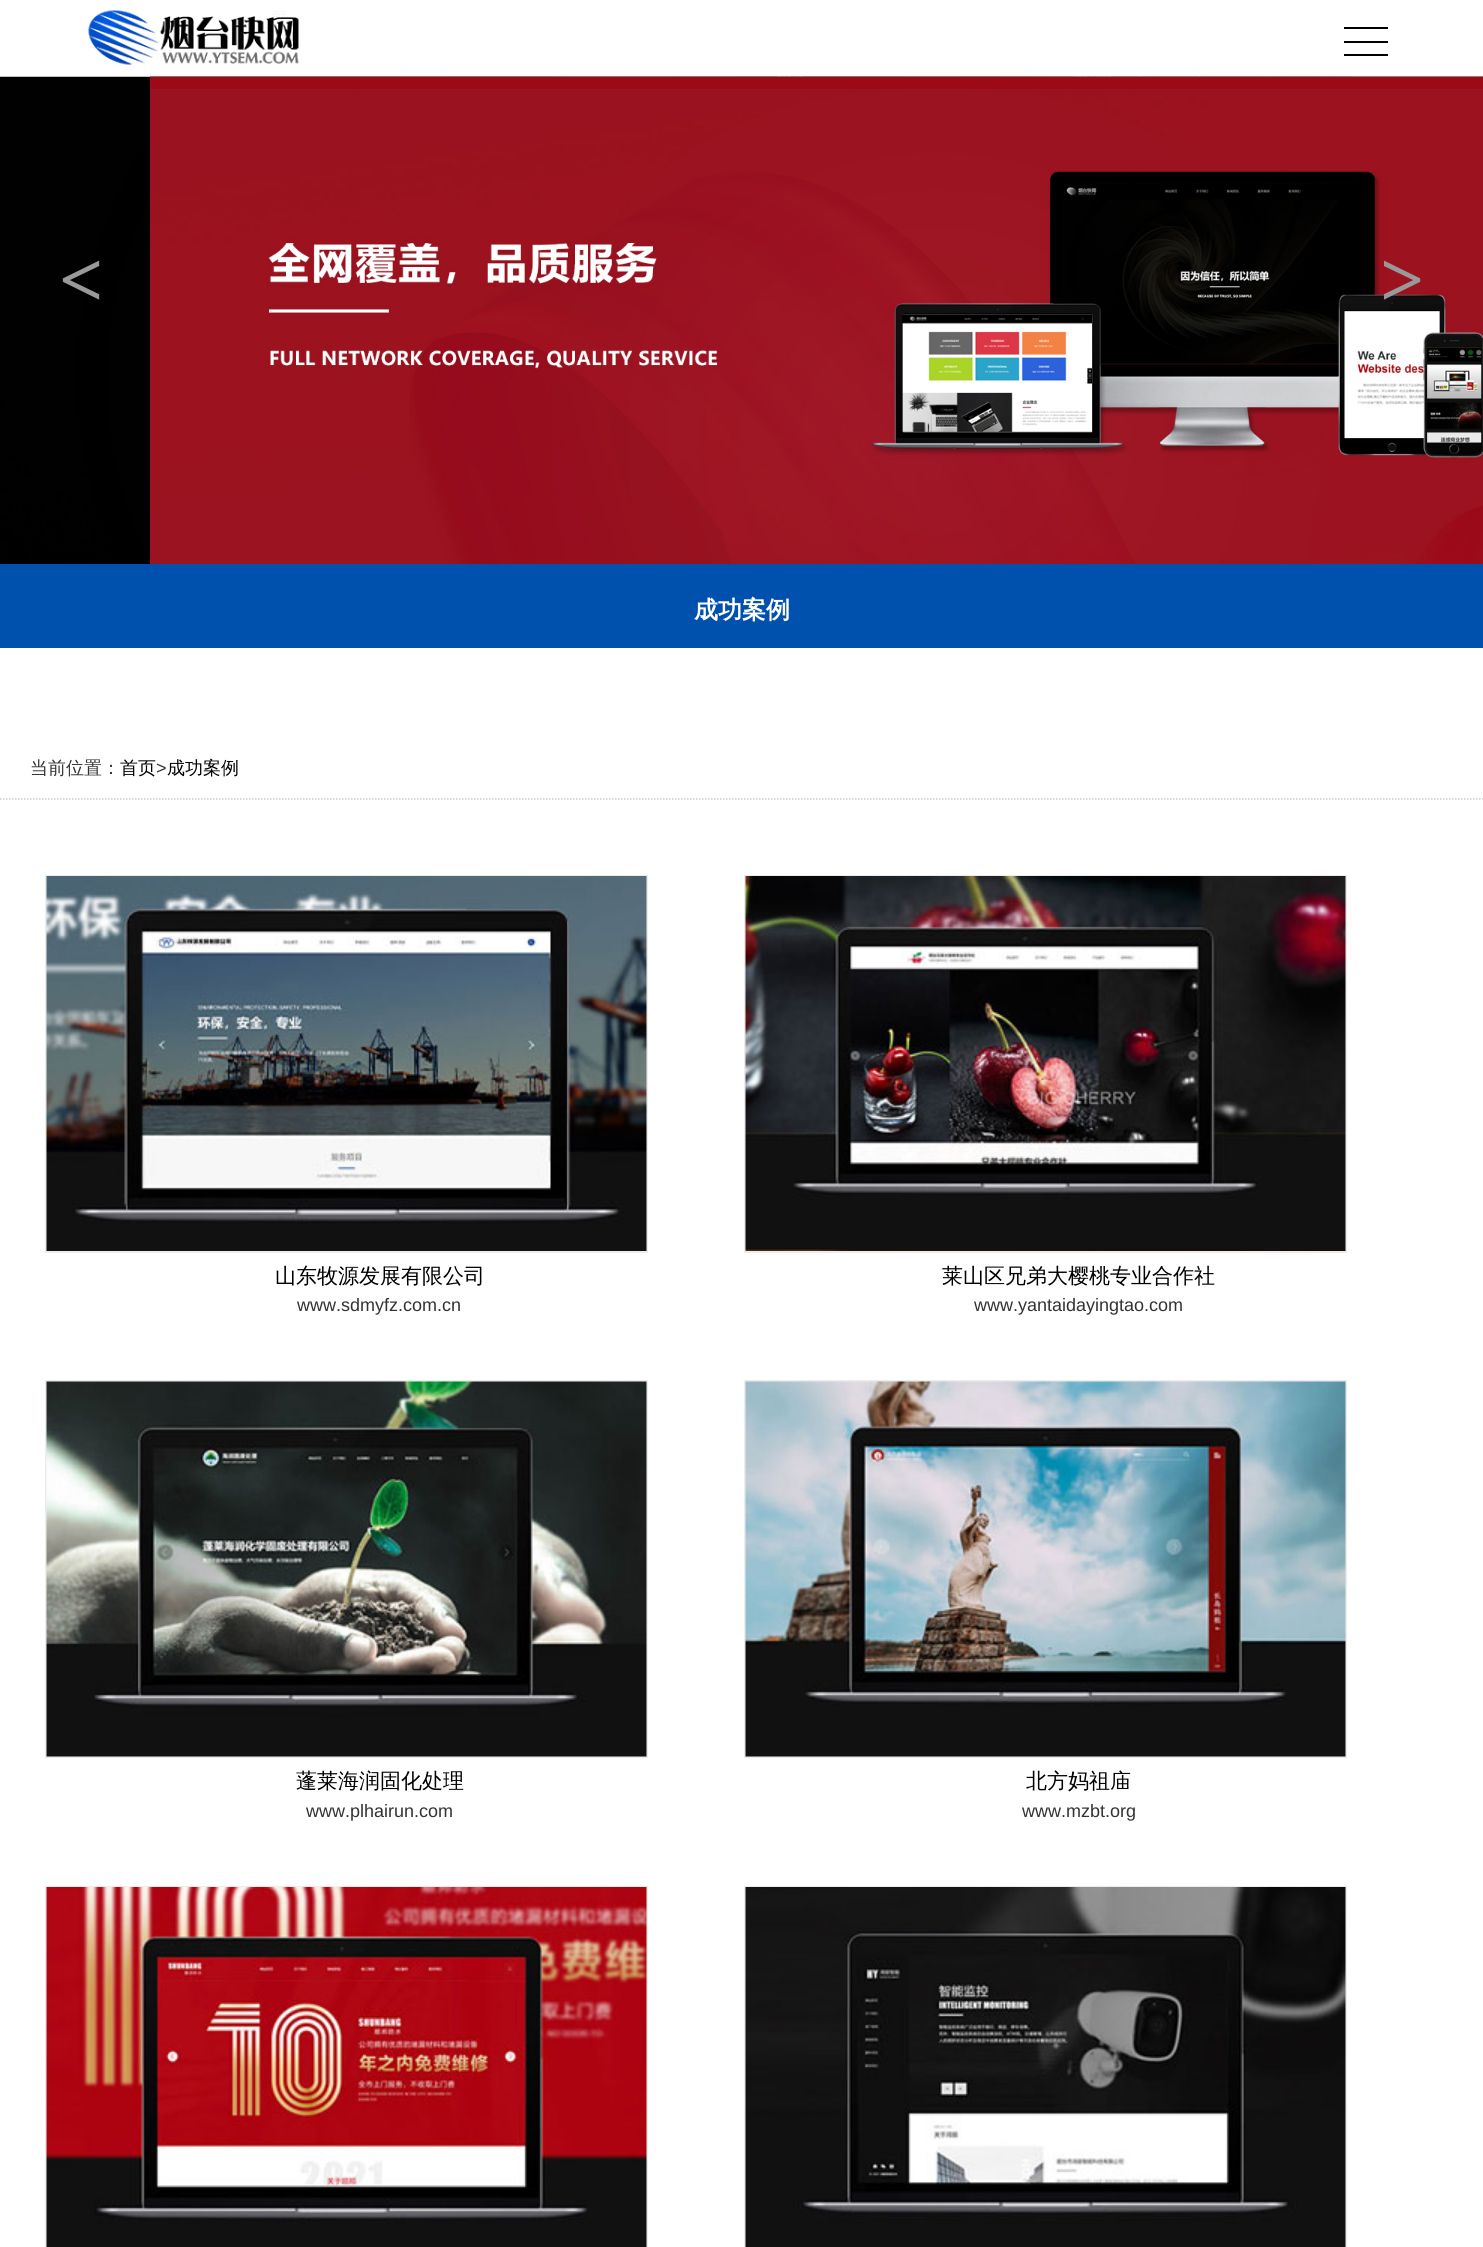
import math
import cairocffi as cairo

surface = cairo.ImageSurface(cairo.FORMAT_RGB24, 1483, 2247)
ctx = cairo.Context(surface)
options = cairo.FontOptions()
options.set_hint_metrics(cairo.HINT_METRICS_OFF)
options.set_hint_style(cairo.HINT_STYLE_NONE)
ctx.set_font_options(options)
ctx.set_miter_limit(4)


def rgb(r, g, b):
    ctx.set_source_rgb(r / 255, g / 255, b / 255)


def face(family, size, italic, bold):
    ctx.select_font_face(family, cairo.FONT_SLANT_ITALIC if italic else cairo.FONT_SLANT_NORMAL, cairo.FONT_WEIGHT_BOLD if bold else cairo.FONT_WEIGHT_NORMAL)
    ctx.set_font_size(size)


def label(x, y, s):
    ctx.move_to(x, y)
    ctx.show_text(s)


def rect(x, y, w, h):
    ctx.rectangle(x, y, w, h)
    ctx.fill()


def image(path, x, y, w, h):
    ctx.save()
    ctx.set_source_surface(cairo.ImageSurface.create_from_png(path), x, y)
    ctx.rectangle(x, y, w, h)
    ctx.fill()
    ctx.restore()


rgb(255, 255, 255)
ctx.paint()
image('image0.png', 88, 10, 211, 55)
rgb(0, 0, 0)
rect(1344, 41, 44, 2)
rect(1344, 27, 44, 2)
rect(1344, 54, 44, 2)
image('image1.png', 0, 76, 1483, 488)
image('image2.png', 150, 76, 1333, 1)
image('image3.png', 150, 76, 1333, 488)
face('Liberation Serif', 78, 0, 1)
rgb(153, 153, 153)
label(59, 306, '<')
label(1380, 306, '>')
rgb(0, 80, 173)
rect(0, 564, 1483, 84)
face('WenQuanYi Zen Hei', 24, 0, 1)
rgb(255, 255, 255)
label(694, 618, '成功案例')
ctx.new_path()
ctx.move_to(0, 799)
ctx.line_to(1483.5, 799)
rgb(204, 204, 204)
ctx.set_line_width(1.5)
ctx.set_dash([1.5, 1.5])
ctx.stroke()
face('WenQuanYi Zen Hei Medium', 18, 0, 0)
rgb(51, 51, 51)
label(30, 774, '当前位置：')
rgb(0, 0, 0)
label(120, 774, '首页')
face('Liberation Sans', 18, 0, 0)
rgb(51, 51, 51)
label(156, 774, '>')
face('WenQuanYi Zen Hei Medium', 18, 0, 0)
rgb(0, 0, 0)
label(167, 774, '成功案例')
ctx.rectangle(46, 876, 601, 376)
rgb(236, 236, 236)
ctx.set_line_width(2)
ctx.set_dash([])
ctx.stroke()
image('image4.png', 46, 876, 601, 375)
face('WenQuanYi Zen Hei Medium', 21, 0, 0)
rgb(0, 0, 0)
label(275, 1283, '山东牧源发展有限公司')
face('Liberation Sans', 18, 0, 0)
rgb(51, 51, 51)
label(297, 1311, 'www.sdmyfz.com.cn')
ctx.rectangle(745, 876, 601, 376)
rgb(236, 236, 236)
ctx.stroke()
image('image5.png', 745, 876, 601, 375)
face('WenQuanYi Zen Hei Medium', 21, 0, 0)
rgb(0, 0, 0)
label(942, 1283, '莱山区兄弟大樱桃专业合作社')
face('Liberation Sans', 18, 0, 0)
rgb(51, 51, 51)
label(974, 1311, 'www.yantaidayingtao.com')
ctx.rectangle(46, 1381, 601, 376)
rgb(236, 236, 236)
ctx.stroke()
image('image6.png', 46, 1381, 601, 376)
face('WenQuanYi Zen Hei Medium', 21, 0, 0)
rgb(0, 0, 0)
label(296, 1788, '蓬莱海润固化处理')
face('Liberation Sans', 18, 0, 0)
rgb(51, 51, 51)
label(306, 1817, 'www.plhairun.com')
ctx.rectangle(745, 1381, 601, 376)
rgb(236, 236, 236)
ctx.stroke()
image('image7.png', 745, 1381, 601, 376)
face('WenQuanYi Zen Hei Medium', 21, 0, 0)
rgb(0, 0, 0)
label(1026, 1788, '北方妈祖庙')
face('Liberation Sans', 18, 0, 0)
rgb(51, 51, 51)
label(1022, 1817, 'www.mzbt.org')
ctx.rectangle(46, 1887, 601, 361)
rgb(236, 236, 236)
ctx.stroke()
image('image8.png', 46, 1887, 601, 360)
ctx.rectangle(745, 1887, 601, 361)
ctx.stroke()
image('image9.png', 745, 1887, 601, 360)
surface.write_to_png('render.png')
